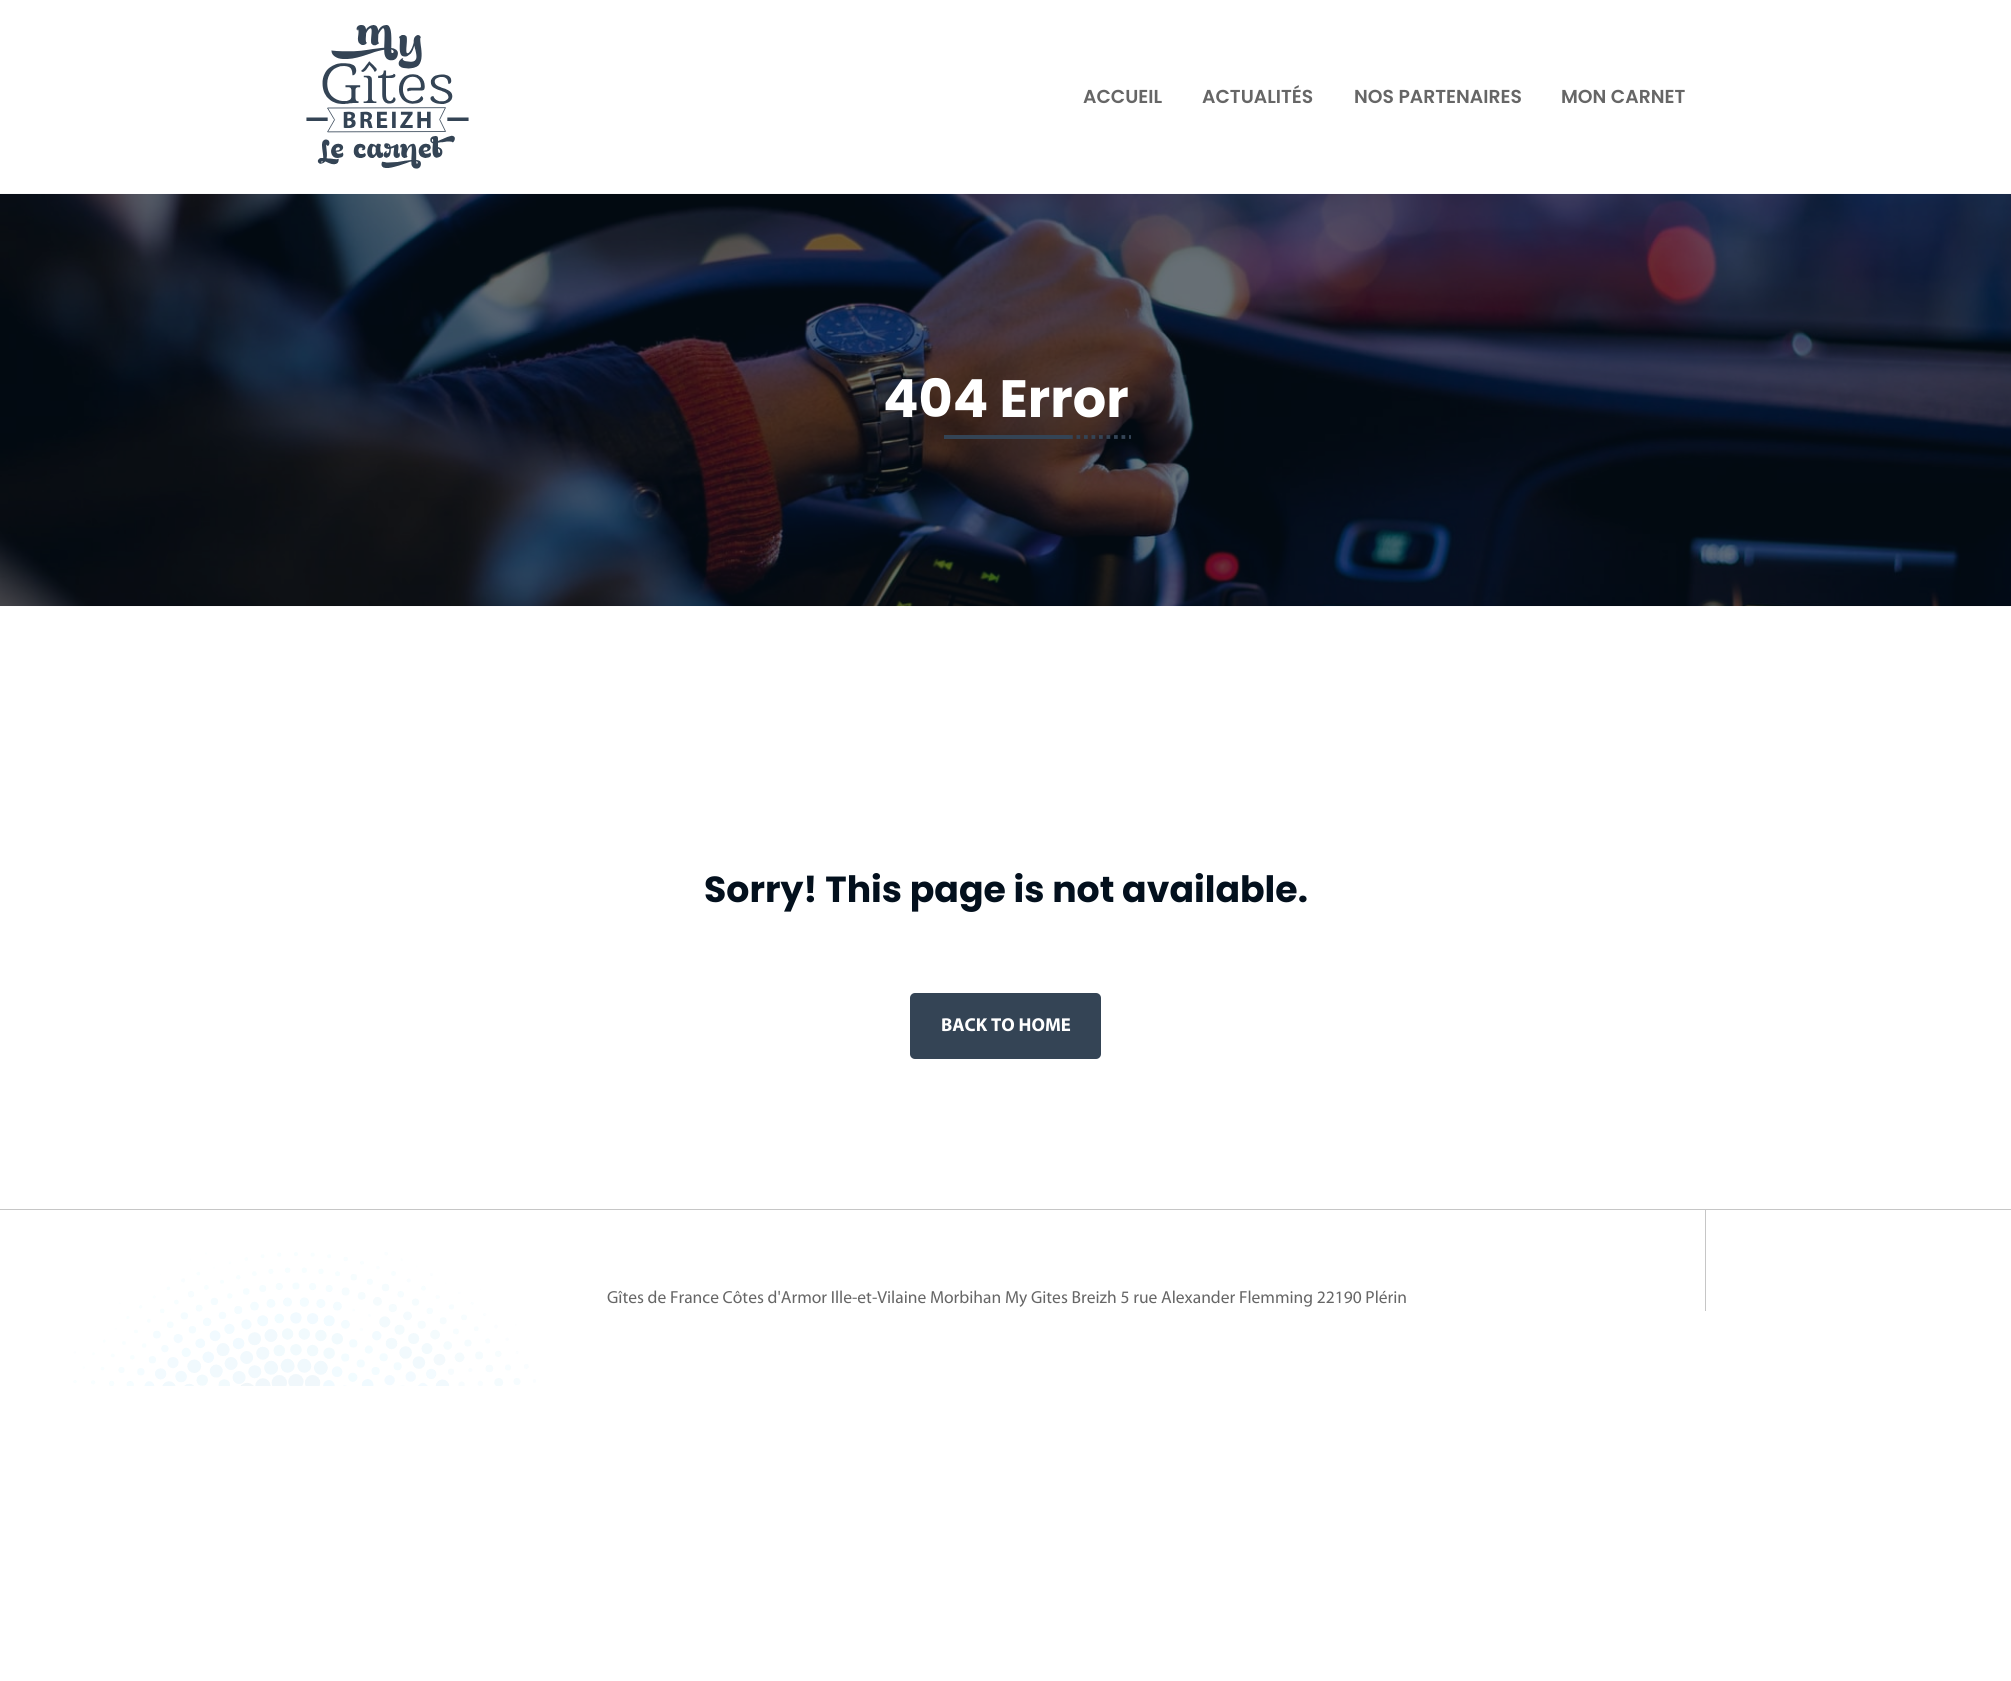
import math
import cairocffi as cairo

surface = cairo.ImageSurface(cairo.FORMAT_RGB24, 2011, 1681)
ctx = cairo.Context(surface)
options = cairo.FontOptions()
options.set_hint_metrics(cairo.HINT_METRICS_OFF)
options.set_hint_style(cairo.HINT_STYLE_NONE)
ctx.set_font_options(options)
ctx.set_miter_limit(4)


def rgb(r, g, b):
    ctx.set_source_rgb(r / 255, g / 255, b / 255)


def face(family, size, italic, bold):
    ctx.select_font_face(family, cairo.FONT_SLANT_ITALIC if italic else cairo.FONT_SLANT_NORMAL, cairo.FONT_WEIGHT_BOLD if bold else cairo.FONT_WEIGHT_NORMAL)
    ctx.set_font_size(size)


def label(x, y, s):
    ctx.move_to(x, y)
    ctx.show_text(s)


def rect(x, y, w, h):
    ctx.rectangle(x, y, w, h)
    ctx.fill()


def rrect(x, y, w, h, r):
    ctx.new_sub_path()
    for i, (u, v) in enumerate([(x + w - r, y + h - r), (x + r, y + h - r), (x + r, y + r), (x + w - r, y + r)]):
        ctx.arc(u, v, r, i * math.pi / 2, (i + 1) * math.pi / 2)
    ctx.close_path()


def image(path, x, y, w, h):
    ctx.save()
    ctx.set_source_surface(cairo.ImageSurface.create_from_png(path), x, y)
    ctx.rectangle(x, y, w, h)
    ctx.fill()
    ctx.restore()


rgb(255, 255, 255)
ctx.paint()
image('image0.png', 306, 25, 163, 144)
face('Poppins SemiBold', 18.75, 0, 0)
rgb(102, 102, 102)
label(1083, 103, 'ACCUEIL')
label(1202, 103, 'ACTUALITÉS')
label(1354, 103, 'NOS PARTENAIRES')
label(1561, 103, 'MON CARNET')
rgb(3, 16, 29)
rect(0, 194, 2011, 412)
image('image1.png', 0, 193, 2011, 414)
face('Poppins', 52.5, 0, 1)
rgb(255, 255, 255)
label(883, 417, '404 Error')
rgb(52, 68, 85)
rect(944, 435, 125, 4)
ctx.new_path()
ctx.move_to(1069, 437)
ctx.line_to(1131, 437)
ctx.set_line_width(3.8)
ctx.set_dash([3.75, 3.75])
ctx.stroke()
face('Poppins', 36.25, 0, 1)
rgb(3, 16, 29)
label(704, 902, 'Sorry! This page is not available.')
rgb(52, 68, 85)
rrect(910, 993, 191, 66, 5)
ctx.fill()
face('Myriad', 18.75, 0, 1)
rgb(255, 255, 255)
label(941, 1031, 'BACK TO HOME')
rgb(198, 198, 198)
rect(0, 1209, 2011, 1)
image('image2.png', 73, 1252, 463, 134)
rect(1705, 1210, 1, 101)
face('Myriad', 17.5, 0, 0)
rgb(102, 102, 102)
label(607, 1303, 'Gîtes de France Côtes d\'Armor Ille-et-Vilaine Morbihan My Gites Breizh 5 rue Alexander Flemming 22190 Plérin')
surface.write_to_png('render.png')
